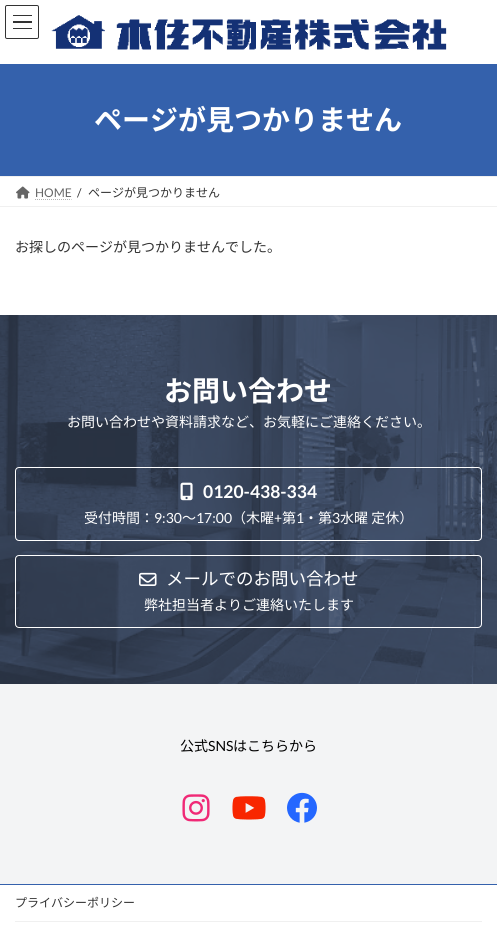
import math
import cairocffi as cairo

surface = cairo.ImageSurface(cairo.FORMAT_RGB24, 497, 936)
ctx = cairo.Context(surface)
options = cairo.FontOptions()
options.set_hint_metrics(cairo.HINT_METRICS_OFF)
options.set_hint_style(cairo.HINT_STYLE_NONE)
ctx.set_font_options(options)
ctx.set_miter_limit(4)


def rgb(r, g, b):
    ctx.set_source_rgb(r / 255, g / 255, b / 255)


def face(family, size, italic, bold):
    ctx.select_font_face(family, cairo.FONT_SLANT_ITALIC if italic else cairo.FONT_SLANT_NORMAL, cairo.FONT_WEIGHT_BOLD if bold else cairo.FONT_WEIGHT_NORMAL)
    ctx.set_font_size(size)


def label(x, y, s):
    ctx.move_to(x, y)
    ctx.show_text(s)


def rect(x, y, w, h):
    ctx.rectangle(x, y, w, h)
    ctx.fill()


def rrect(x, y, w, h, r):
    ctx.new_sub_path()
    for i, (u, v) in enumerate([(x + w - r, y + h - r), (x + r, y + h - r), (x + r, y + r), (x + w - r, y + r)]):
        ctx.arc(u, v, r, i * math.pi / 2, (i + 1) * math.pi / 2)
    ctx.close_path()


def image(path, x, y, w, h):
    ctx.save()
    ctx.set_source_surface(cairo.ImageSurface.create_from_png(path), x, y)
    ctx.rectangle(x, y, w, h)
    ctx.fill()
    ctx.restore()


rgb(255, 255, 255)
ctx.paint()
rgb(51, 51, 51)
rect(13, 15, 19, 1)
rect(13, 21, 19, 2)
rect(13, 28, 19, 1)
rrect(5.5, 5.5, 33, 33, 1.5)
ctx.set_line_width(1)
ctx.stroke()
image('image0.png', 51, 15, 396, 35)
rgb(52, 97, 172)
rect(0, 64, 497, 112)
face('Noto Sans JP', 28, 0, 1)
rgb(255, 255, 255)
label(94, 130, 'ページが見つかりません')
rgb(240, 240, 240)
rect(0, 176, 497, 1)
rect(0, 206, 497, 1)
image('image1.png', 16, 186, 14, 13)
face('Lato', 12, 0, 0)
rgb(102, 102, 102)
label(35, 197, 'HOME')
ctx.new_path()
ctx.move_to(35, 199.5)
ctx.line_to(71.5, 199.5)
rgb(179, 179, 179)
ctx.set_dash([1, 1])
ctx.stroke()
rgb(51, 51, 51)
label(77, 197, '/')
face('Noto Sans JP', 12, 0, 0)
label(88, 197, 'ページが見つかりません')
face('Noto Sans JP', 14, 0, 0)
label(15, 252, 'お探しのページが見つかりませんでした。')
image('image2.png', 0, 315, 497, 369)
face('Noto Sans JP', 28, 0, 1)
rgb(255, 255, 255)
label(164, 401, 'お問い合わせ')
face('Noto Sans JP', 14, 0, 0)
label(67, 427, 'お問い合わせや資料請求など、お気軽にご連絡ください。')
rrect(15.5, 467.5, 466, 73, 3.5)
ctx.set_dash([])
ctx.stroke()
image('image3.png', 180, 482, 13, 19)
face('Lato', 17.5, 0, 1)
label(203, 498, '0120-438-334')
face('Noto Sans JP', 14, 0, 0)
label(84, 523, '受付時間：')
face('Lato', 14, 0, 0)
label(154, 523, '9:30')
face('Noto Sans JP', 14, 0, 0)
label(182, 523, '～')
face('Lato', 14, 0, 0)
label(196, 523, '17:00')
face('Noto Sans JP', 14, 0, 0)
label(232, 523, '（木曜')
face('Lato', 14, 0, 0)
label(274, 523, '+')
face('Noto Sans JP', 14, 0, 0)
label(282, 523, '第')
face('Lato', 14, 0, 0)
label(296, 523, '1')
face('Noto Sans JP', 14, 0, 0)
label(304, 523, '・第')
face('Lato', 14, 0, 0)
label(332, 523, '3')
face('Noto Sans JP', 14, 0, 0)
label(340, 523, '水曜 定休）')
rrect(15.5, 555.5, 466, 72, 3.5)
ctx.stroke()
image('image4.png', 139, 572, 18, 14)
face('Noto Sans JP', 17.5, 0, 0)
label(166, 585, 'メールでのお問い合わせ')
face('Noto Sans JP', 14, 0, 0)
label(144, 610, '弊社担当者よりご連絡いたします')
rgb(243, 244, 245)
rect(0, 684, 497, 200)
rgb(0, 0, 0)
label(180, 751, '公式')
face('Lato', 14, 0, 0)
label(208, 751, 'SNS')
face('Noto Sans JP', 14, 0, 0)
label(233, 751, 'はこちらから')
image('image5.png', 182, 794, 28, 28)
image('image6.png', 232, 796, 34, 24)
image('image7.png', 287, 792, 30, 31)
rgb(52, 97, 172)
rect(0, 884, 497, 1)
rgb(240, 240, 240)
rect(15, 921, 467, 1)
face('Noto Sans JP', 12, 0, 0)
rgb(51, 51, 51)
label(15, 907, 'プライバシーポリシー')
surface.write_to_png('render.png')
